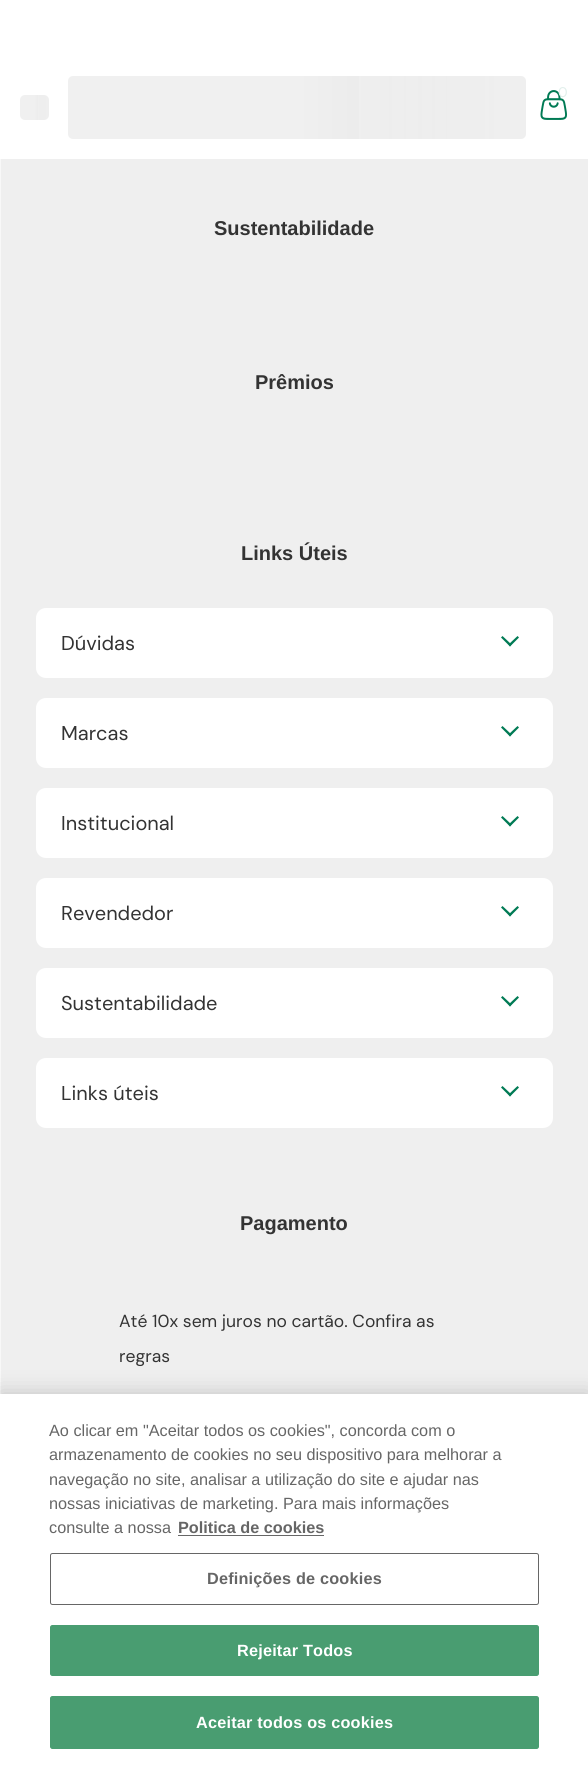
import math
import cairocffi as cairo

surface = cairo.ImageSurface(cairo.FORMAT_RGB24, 588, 1768)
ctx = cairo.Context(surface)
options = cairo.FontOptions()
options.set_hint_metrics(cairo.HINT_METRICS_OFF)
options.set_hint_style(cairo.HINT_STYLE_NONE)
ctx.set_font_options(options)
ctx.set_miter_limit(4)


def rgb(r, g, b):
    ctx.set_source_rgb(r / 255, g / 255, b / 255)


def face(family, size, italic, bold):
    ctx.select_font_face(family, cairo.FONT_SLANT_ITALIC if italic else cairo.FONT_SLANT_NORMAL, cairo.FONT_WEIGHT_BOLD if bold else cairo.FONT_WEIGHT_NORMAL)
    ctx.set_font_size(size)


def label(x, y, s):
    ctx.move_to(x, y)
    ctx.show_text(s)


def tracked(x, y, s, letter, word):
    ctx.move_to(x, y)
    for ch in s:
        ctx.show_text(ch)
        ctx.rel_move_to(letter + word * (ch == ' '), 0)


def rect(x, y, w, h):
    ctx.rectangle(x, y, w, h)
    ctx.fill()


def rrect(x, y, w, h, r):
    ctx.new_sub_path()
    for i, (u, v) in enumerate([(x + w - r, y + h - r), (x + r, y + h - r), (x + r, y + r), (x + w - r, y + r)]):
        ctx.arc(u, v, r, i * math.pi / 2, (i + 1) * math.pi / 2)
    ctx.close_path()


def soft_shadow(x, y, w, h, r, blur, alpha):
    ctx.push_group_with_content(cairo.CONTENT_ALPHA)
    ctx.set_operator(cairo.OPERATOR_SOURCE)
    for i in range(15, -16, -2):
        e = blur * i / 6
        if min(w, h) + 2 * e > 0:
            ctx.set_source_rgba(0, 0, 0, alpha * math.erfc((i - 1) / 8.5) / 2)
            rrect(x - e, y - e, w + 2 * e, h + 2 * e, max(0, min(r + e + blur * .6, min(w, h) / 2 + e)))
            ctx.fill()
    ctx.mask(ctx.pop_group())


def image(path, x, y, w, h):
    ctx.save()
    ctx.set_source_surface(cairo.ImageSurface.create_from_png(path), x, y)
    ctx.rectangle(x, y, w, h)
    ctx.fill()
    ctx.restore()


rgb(248, 248, 248)
ctx.paint()
rgb(255, 255, 255)
rect(0, 0, 588, 159)
gradient = cairo.LinearGradient(68, 108, 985, 107)
gradient.add_color_stop_rgba(0.25, 0.941, 0.941, 0.941, 1)
gradient.add_color_stop_rgba(0.5, 0.878, 0.878, 0.878, 1)
gradient.add_color_stop_rgba(0.75, 0.941, 0.941, 0.941, 1)
ctx.set_source(gradient)
rrect(68, 76, 458, 63, 5)
ctx.fill()
gradient = cairo.LinearGradient(68, 108, 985, 107)
gradient.add_color_stop_rgba(0.25, 1, 1, 1, 0)
gradient.add_color_stop_rgba(0.5, 1, 1, 1, 0.5)
gradient.add_color_stop_rgba(0.75, 1, 1, 1, 0)
ctx.set_source(gradient)
rect(359, 76, 167, 63)
image('image0.png', 540, 90, 27, 30)
face('DM Sans', 14, 0, 0)
rgb(225, 239, 235)
label(558, 97, '0')
gradient = cairo.LinearGradient(20, 108, 78, 108)
gradient.add_color_stop_rgba(0.25, 0.941, 0.941, 0.941, 1)
gradient.add_color_stop_rgba(0.5, 0.878, 0.878, 0.878, 1)
gradient.add_color_stop_rgba(0.75, 0.941, 0.941, 0.941, 1)
ctx.set_source(gradient)
rrect(20, 95, 29, 25, 5)
ctx.fill()
gradient = cairo.LinearGradient(20, 108, 78, 108)
gradient.add_color_stop_rgba(0.25, 1, 1, 1, 0)
gradient.add_color_stop_rgba(0.5, 1, 1, 1, 0.5)
gradient.add_color_stop_rgba(0.75, 1, 1, 1, 0)
ctx.set_source(gradient)
rect(38, 95, 11, 25)
rgb(239, 239, 239)
rect(1, 159, 587, 329)
face('Liberation Sans', 20, 0, 1)
rgb(51, 51, 51)
label(214, 235, 'Sustentabilidade')
label(255, 389, 'Prêmios')
rgb(239, 239, 239)
rect(1, 488, 587, 906)
rgb(51, 51, 51)
label(241, 560, 'Links Úteis')
rgb(255, 255, 255)
rrect(36, 608, 517, 70, 10)
ctx.fill()
face('DM Sans', 20, 0, 0)
rgb(51, 51, 51)
label(61, 650, 'Dúvidas')
rgb(0, 122, 84)
ctx.new_path()
ctx.move_to(501, 637.5)
ctx.line_to(502.5, 636)
ctx.line_to(511.5, 644.5)
ctx.line_to(510, 646.5)
ctx.close_path()
ctx.fill()
ctx.new_path()
ctx.move_to(517.5, 636)
ctx.line_to(519, 637.5)
ctx.line_to(510, 646.5)
ctx.line_to(508.5, 644.5)
ctx.close_path()
ctx.fill()
rgb(255, 255, 255)
rrect(36, 698, 517, 70, 10)
ctx.fill()
rgb(51, 51, 51)
label(61, 740, 'Marcas')
rgb(0, 122, 84)
ctx.new_path()
ctx.move_to(501, 727.5)
ctx.line_to(502.5, 726)
ctx.line_to(511.5, 734.5)
ctx.line_to(510, 736.5)
ctx.close_path()
ctx.fill()
ctx.new_path()
ctx.move_to(517.5, 726)
ctx.line_to(519, 727.5)
ctx.line_to(510, 736.5)
ctx.line_to(508.5, 734.5)
ctx.close_path()
ctx.fill()
rgb(255, 255, 255)
rrect(36, 788, 517, 70, 10)
ctx.fill()
rgb(51, 51, 51)
label(61, 830, 'Institucional')
rgb(0, 122, 84)
ctx.new_path()
ctx.move_to(501, 817.5)
ctx.line_to(502.5, 816)
ctx.line_to(511.5, 824.5)
ctx.line_to(510, 826.5)
ctx.close_path()
ctx.fill()
ctx.new_path()
ctx.move_to(517.5, 816)
ctx.line_to(519, 817.5)
ctx.line_to(510, 826.5)
ctx.line_to(508.5, 824.5)
ctx.close_path()
ctx.fill()
rgb(255, 255, 255)
rrect(36, 878, 517, 70, 10)
ctx.fill()
rgb(51, 51, 51)
label(61, 920, 'Revendedor')
rgb(0, 122, 84)
ctx.new_path()
ctx.move_to(501, 907.5)
ctx.line_to(502.5, 906)
ctx.line_to(511.5, 914.5)
ctx.line_to(510, 916.5)
ctx.close_path()
ctx.fill()
ctx.new_path()
ctx.move_to(517.5, 906)
ctx.line_to(519, 907.5)
ctx.line_to(510, 916.5)
ctx.line_to(508.5, 914.5)
ctx.close_path()
ctx.fill()
rgb(255, 255, 255)
rrect(36, 968, 517, 70, 10)
ctx.fill()
rgb(51, 51, 51)
label(61, 1010, 'Sustentabilidade')
rgb(0, 122, 84)
ctx.new_path()
ctx.move_to(501, 997.5)
ctx.line_to(502.5, 996)
ctx.line_to(511.5, 1004.5)
ctx.line_to(510, 1006.5)
ctx.close_path()
ctx.fill()
ctx.new_path()
ctx.move_to(517.5, 996)
ctx.line_to(519, 997.5)
ctx.line_to(510, 1006.5)
ctx.line_to(508.5, 1004.5)
ctx.close_path()
ctx.fill()
rgb(255, 255, 255)
rrect(36, 1058, 517, 70, 10)
ctx.fill()
rgb(51, 51, 51)
label(61, 1100, 'Links úteis')
rgb(0, 122, 84)
ctx.new_path()
ctx.move_to(501, 1087.5)
ctx.line_to(502.5, 1086)
ctx.line_to(511.5, 1094.5)
ctx.line_to(510, 1096.5)
ctx.close_path()
ctx.fill()
ctx.new_path()
ctx.move_to(517.5, 1086)
ctx.line_to(519, 1087.5)
ctx.line_to(510, 1096.5)
ctx.line_to(508.5, 1094.5)
ctx.close_path()
ctx.fill()
face('Liberation Sans', 20, 0, 1)
rgb(51, 51, 51)
label(240, 1230, 'Pagamento')
face('DM Sans', 17.5, 0, 0)
label(119, 1327, 'Até 10x sem juros no cartão. Confira as')
label(119, 1362, 'regras')
rgb(0, 0, 0)
soft_shadow(0, 1394, 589, 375, 0, 11, 0.2)
rgb(255, 255, 255)
rect(0, 1394, 588, 374)
face('Liberation Sans', 16.25, 0, 0)
rgb(102, 102, 102)
label(49, 1436, 'Ao clicar em "Aceitar todos os cookies", concorda com o')
label(49, 1460, 'armazenamento de cookies no seu dispositivo para melhorar a')
label(49, 1485, 'navegação no site, analisar a utilização do site e ajudar nas')
label(49, 1509, 'nossas iniciativas de marketing. Para mais informações')
label(49, 1533, 'consulte a nossa')
face('Liberation Sans', 16.25, 0, 1)
label(178, 1533, 'Politica de cookies')
rect(178, 1535, 146, 1)
rrect(50.5, 1553.5, 488, 51, 2)
ctx.set_line_width(1)
ctx.stroke()
tracked(207, 1584, 'Definições de cookies', 0.2, 0)
rgb(73, 157, 113)
rrect(50.5, 1625.5, 488, 50, 2)
ctx.fill_preserve()
ctx.stroke()
rgb(255, 255, 255)
tracked(237, 1656, 'Rejeitar Todos', 0.2, 0)
rgb(73, 157, 113)
rrect(50.5, 1696.5, 488, 52, 2)
ctx.fill_preserve()
ctx.stroke()
rgb(255, 255, 255)
tracked(196, 1728, 'Aceitar todos os cookies', 0.2, 0)
surface.write_to_png('render.png')
